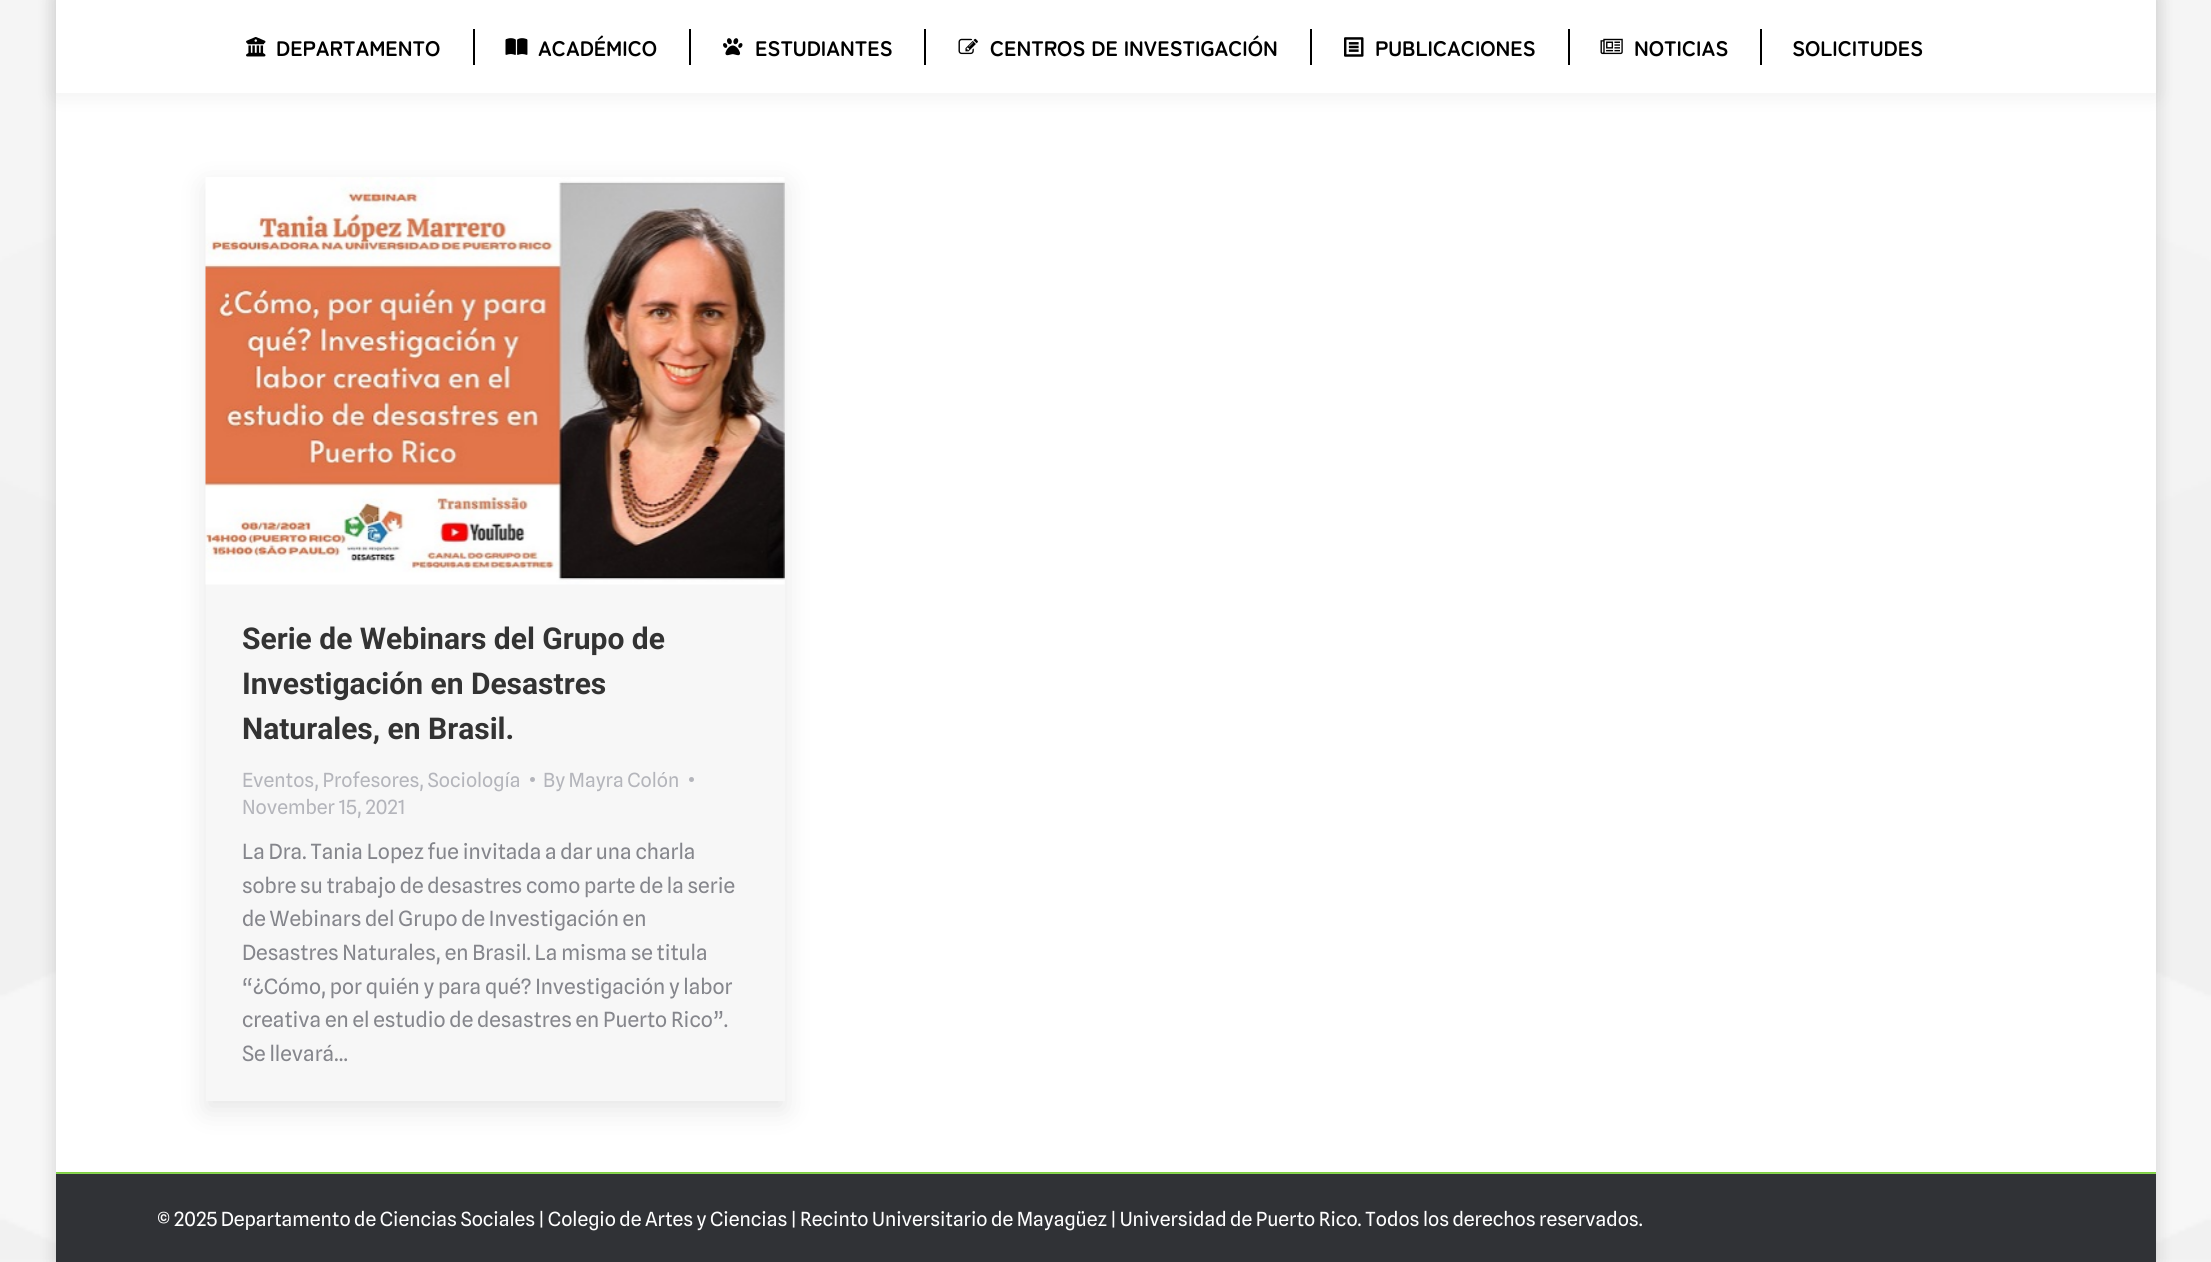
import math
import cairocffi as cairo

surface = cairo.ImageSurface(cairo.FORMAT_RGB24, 2211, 1262)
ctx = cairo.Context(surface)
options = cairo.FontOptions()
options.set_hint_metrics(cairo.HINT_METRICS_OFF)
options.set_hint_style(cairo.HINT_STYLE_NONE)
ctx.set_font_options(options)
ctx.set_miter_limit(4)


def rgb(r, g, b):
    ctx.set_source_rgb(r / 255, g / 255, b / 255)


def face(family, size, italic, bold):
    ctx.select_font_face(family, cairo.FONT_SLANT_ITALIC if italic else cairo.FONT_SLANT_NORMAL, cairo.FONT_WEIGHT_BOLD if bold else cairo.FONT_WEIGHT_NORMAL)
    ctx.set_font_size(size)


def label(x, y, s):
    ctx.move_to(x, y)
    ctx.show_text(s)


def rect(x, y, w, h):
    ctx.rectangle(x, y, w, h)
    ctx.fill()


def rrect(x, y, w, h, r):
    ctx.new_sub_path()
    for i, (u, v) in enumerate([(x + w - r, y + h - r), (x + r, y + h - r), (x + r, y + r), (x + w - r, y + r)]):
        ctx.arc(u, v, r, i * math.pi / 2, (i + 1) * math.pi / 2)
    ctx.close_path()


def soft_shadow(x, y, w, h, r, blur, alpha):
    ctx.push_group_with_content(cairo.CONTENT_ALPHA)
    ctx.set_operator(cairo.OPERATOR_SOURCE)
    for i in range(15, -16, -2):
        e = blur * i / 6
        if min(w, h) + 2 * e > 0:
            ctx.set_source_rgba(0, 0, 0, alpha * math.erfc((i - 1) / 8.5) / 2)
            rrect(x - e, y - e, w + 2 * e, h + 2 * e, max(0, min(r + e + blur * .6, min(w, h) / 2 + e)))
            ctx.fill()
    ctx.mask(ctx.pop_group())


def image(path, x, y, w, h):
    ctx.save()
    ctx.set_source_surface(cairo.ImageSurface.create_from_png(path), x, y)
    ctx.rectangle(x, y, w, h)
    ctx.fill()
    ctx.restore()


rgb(255, 255, 255)
ctx.paint()
image('image0.png', 0, 0, 2211, 1262)
rgb(0, 0, 0)
soft_shadow(56, -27, 2100, 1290, 0, 9, 0.15)
rgb(255, 255, 255)
rect(56, 93, 2100, 1079)
rgb(0, 0, 0)
soft_shadow(54, -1, 2103, 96, 0, 11, 0.07)
rgb(255, 255, 255)
rect(56, 0, 2100, 93)
image('image1.png', 246, 37, 20, 20)
face('Zen Maru Gothic', 21, 0, 1)
rgb(0, 0, 0)
label(276, 56, 'DEPARTAMENTO')
rect(473, 29, 2, 36)
image('image2.png', 505, 38, 23, 17)
label(538, 56, 'ACADÉMICO')
rect(689, 29, 2, 36)
image('image3.png', 723, 38, 20, 18)
label(755, 56, 'ESTUDIANTES')
rect(924, 29, 2, 36)
image('image4.png', 958, 38, 20, 17)
label(990, 56, 'CENTROS DE INVESTIGACIÓN')
rect(1310, 29, 2, 36)
image('image5.png', 1344, 37, 20, 20)
label(1375, 56, 'PUBLICACIONES')
rect(1568, 29, 2, 36)
image('image6.png', 1600, 38, 23, 17)
label(1634, 56, 'NOTICIAS')
rect(1760, 29, 2, 36)
label(1792, 56, 'SOLICITUDES')
rgb(0, 0, 0)
soft_shadow(206, 186, 579, 924, 0, 13.5, 0.1)
rgb(247, 247, 247)
rect(206, 177, 579, 924)
image('image7.png', 205, 177, 580, 408)
face('Roboto', 30, 0, 1)
rgb(51, 51, 51)
label(242, 649, 'Serie de Webinars del Grupo de')
label(242, 694, 'Investigación en Desastres')
label(242, 739, 'Naturales, en Brasil.')
face('Spline Sans', 19.5, 0, 0)
rgb(180, 181, 187)
label(242, 787, 'Eventos, Profesores, Sociología')
ctx.new_path()
ctx.arc(532.5, 779.5, 2.5, 0, 2 * math.pi)
ctx.fill()
label(543, 787, 'By Mayra Colón')
ctx.new_path()
ctx.arc(691.5, 779.5, 2.5, 0, 2 * math.pi)
ctx.fill()
label(242, 814, 'November 15, 2021')
face('Spline Sans', 21, 0, 0)
rgb(133, 134, 140)
label(242, 859, 'La Dra. Tania Lopez fue invitada a dar una charla')
label(242, 893, 'sobre su trabajo de desastres como parte de la serie')
label(242, 926, 'de Webinars del Grupo de Investigación en')
label(242, 960, 'Desastres Naturales, en Brasil. La misma se titula')
label(242, 994, '“¿Cómo, por quién y para qué? Investigación y labor')
label(242, 1027, 'creativa en el estudio de desastres en Puerto Rico”.')
label(242, 1061, 'Se llevará…')
rgb(26, 28, 32)
rect(56, 1174, 2100, 88)
rgb(125, 208, 65)
rect(56, 1172, 2100, 2)
ctx.set_source_rgba(1, 1, 1, 0.1)
rect(56, 1173, 2100, 89)
face('Spline Sans', 19.5, 0, 0)
rgb(255, 255, 255)
label(157, 1226, '© 2025 Departamento de Ciencias Sociales | Colegio de Artes y Ciencias | Recinto Universitario de Mayagüez | Universidad de Puerto Rico. Todos los derechos reservados.')
surface.write_to_png('render.png')
